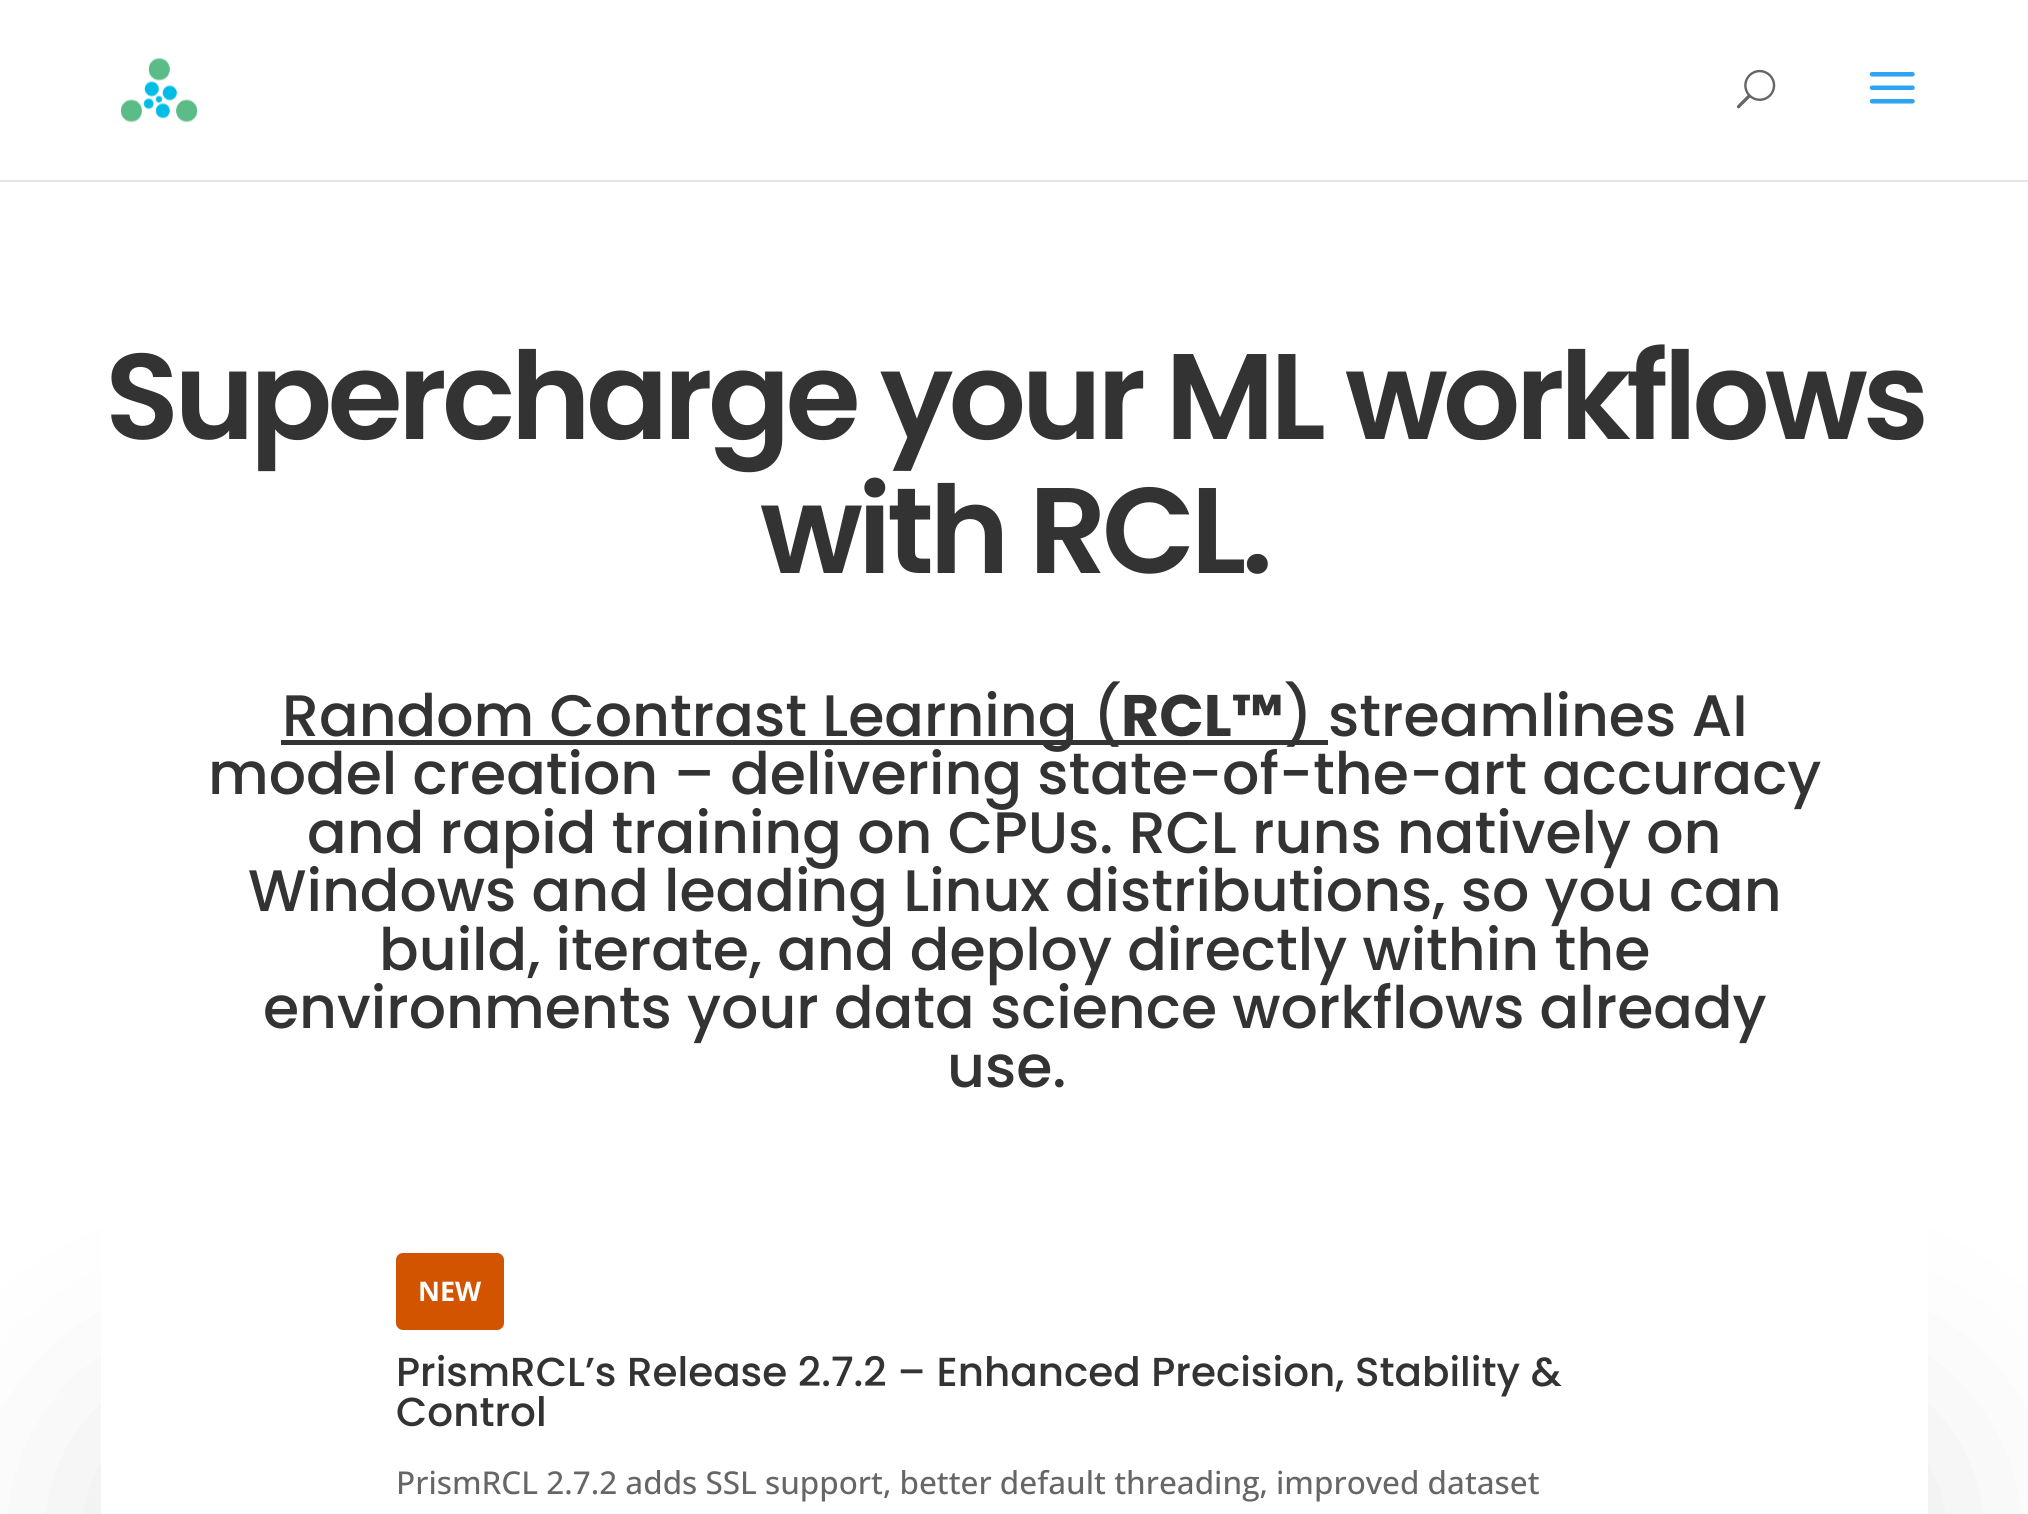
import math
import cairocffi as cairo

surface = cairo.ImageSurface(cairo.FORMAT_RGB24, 2028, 1514)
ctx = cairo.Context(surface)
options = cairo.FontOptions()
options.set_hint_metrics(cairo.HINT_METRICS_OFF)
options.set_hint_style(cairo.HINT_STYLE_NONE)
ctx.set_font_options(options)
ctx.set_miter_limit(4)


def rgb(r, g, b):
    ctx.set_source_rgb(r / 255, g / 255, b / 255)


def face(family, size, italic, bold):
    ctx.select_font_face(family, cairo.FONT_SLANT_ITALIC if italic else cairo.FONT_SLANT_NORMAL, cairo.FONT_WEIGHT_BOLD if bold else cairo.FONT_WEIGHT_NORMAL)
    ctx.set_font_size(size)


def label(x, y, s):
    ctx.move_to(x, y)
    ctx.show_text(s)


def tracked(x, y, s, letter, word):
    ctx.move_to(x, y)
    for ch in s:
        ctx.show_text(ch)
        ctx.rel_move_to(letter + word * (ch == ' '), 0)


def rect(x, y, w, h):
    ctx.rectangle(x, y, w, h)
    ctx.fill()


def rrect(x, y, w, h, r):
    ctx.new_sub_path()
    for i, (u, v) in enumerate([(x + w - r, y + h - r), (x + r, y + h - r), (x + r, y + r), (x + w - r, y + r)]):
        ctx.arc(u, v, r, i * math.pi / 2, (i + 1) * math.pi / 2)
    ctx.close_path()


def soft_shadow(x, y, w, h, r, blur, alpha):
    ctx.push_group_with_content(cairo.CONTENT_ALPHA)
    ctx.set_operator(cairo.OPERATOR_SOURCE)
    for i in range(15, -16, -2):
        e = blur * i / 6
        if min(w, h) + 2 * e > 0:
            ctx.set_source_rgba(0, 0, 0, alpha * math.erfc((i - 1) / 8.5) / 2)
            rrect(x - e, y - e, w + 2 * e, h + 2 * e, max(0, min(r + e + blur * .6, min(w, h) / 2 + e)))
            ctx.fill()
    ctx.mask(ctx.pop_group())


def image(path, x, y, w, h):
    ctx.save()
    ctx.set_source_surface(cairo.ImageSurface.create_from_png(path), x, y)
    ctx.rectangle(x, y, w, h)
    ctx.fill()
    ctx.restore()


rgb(255, 255, 255)
ctx.paint()
rgb(230, 230, 230)
ctx.new_path()
ctx.move_to(0, 180)
ctx.line_to(0, 182)
ctx.line_to(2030, 182)
ctx.line_to(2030, 2)
ctx.line_to(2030, 180)
ctx.close_path()
ctx.fill()
image('image0.png', 121, 57, 77, 66)
image('image1.png', 1736, 69, 40, 40)
image('image2.png', 1869, 72, 46, 32)
face('Poppins SemiBold', 121.75, 0, 0)
rgb(51, 51, 51)
tracked(105, 439, 'Supercharge your ML workflows', -4.9, 0)
tracked(760, 573, 'with RCL.', -4.9, 0)
rect(281, 740, 1047, 5)
face('Poppins Medium', 58.5, 0, 0)
label(282, 736, 'Random Contrast Learning (')
face('Poppins', 58.5, 0, 1)
label(1121, 736, 'RCL™')
face('Poppins Medium', 58.5, 0, 0)
label(1284, 736, ') streamlines AI')
label(208, 794, 'model creation – delivering state-of-the-art accuracy')
label(307, 853, 'and rapid training on CPUs. RCL runs natively on')
label(248, 911, 'Windows and leading Linux distributions, so you can')
label(379, 970, 'build, iterate, and deploy directly within the')
label(263, 1028, 'environments your data science workflows already')
label(947, 1087, 'use.')
rgb(194, 194, 200)
soft_shadow(101, 1411, 1827, 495, 54, 112.5, 0.4)
rgb(255, 255, 255)
rrect(101, 1186, 1827, 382, 54)
ctx.fill()
rgb(211, 84, 0)
rrect(396, 1253, 108, 77, 7)
ctx.fill()
face('Open Sans', 27, 0, 1)
rgb(255, 255, 255)
label(418, 1301, 'NEW')
face('Poppins Medium', 40.5, 0, 0)
rgb(51, 51, 51)
label(396, 1386, 'PrismRCL’s Release 2.7.2 – Enhanced Precision, Stability &')
label(396, 1426, 'Control')
face('Open Sans Medium', 31.5, 0, 0)
rgb(102, 102, 102)
label(396, 1494, 'PrismRCL 2.7.2 adds SSL support, better default threading, improved dataset')
surface.write_to_png('render.png')
